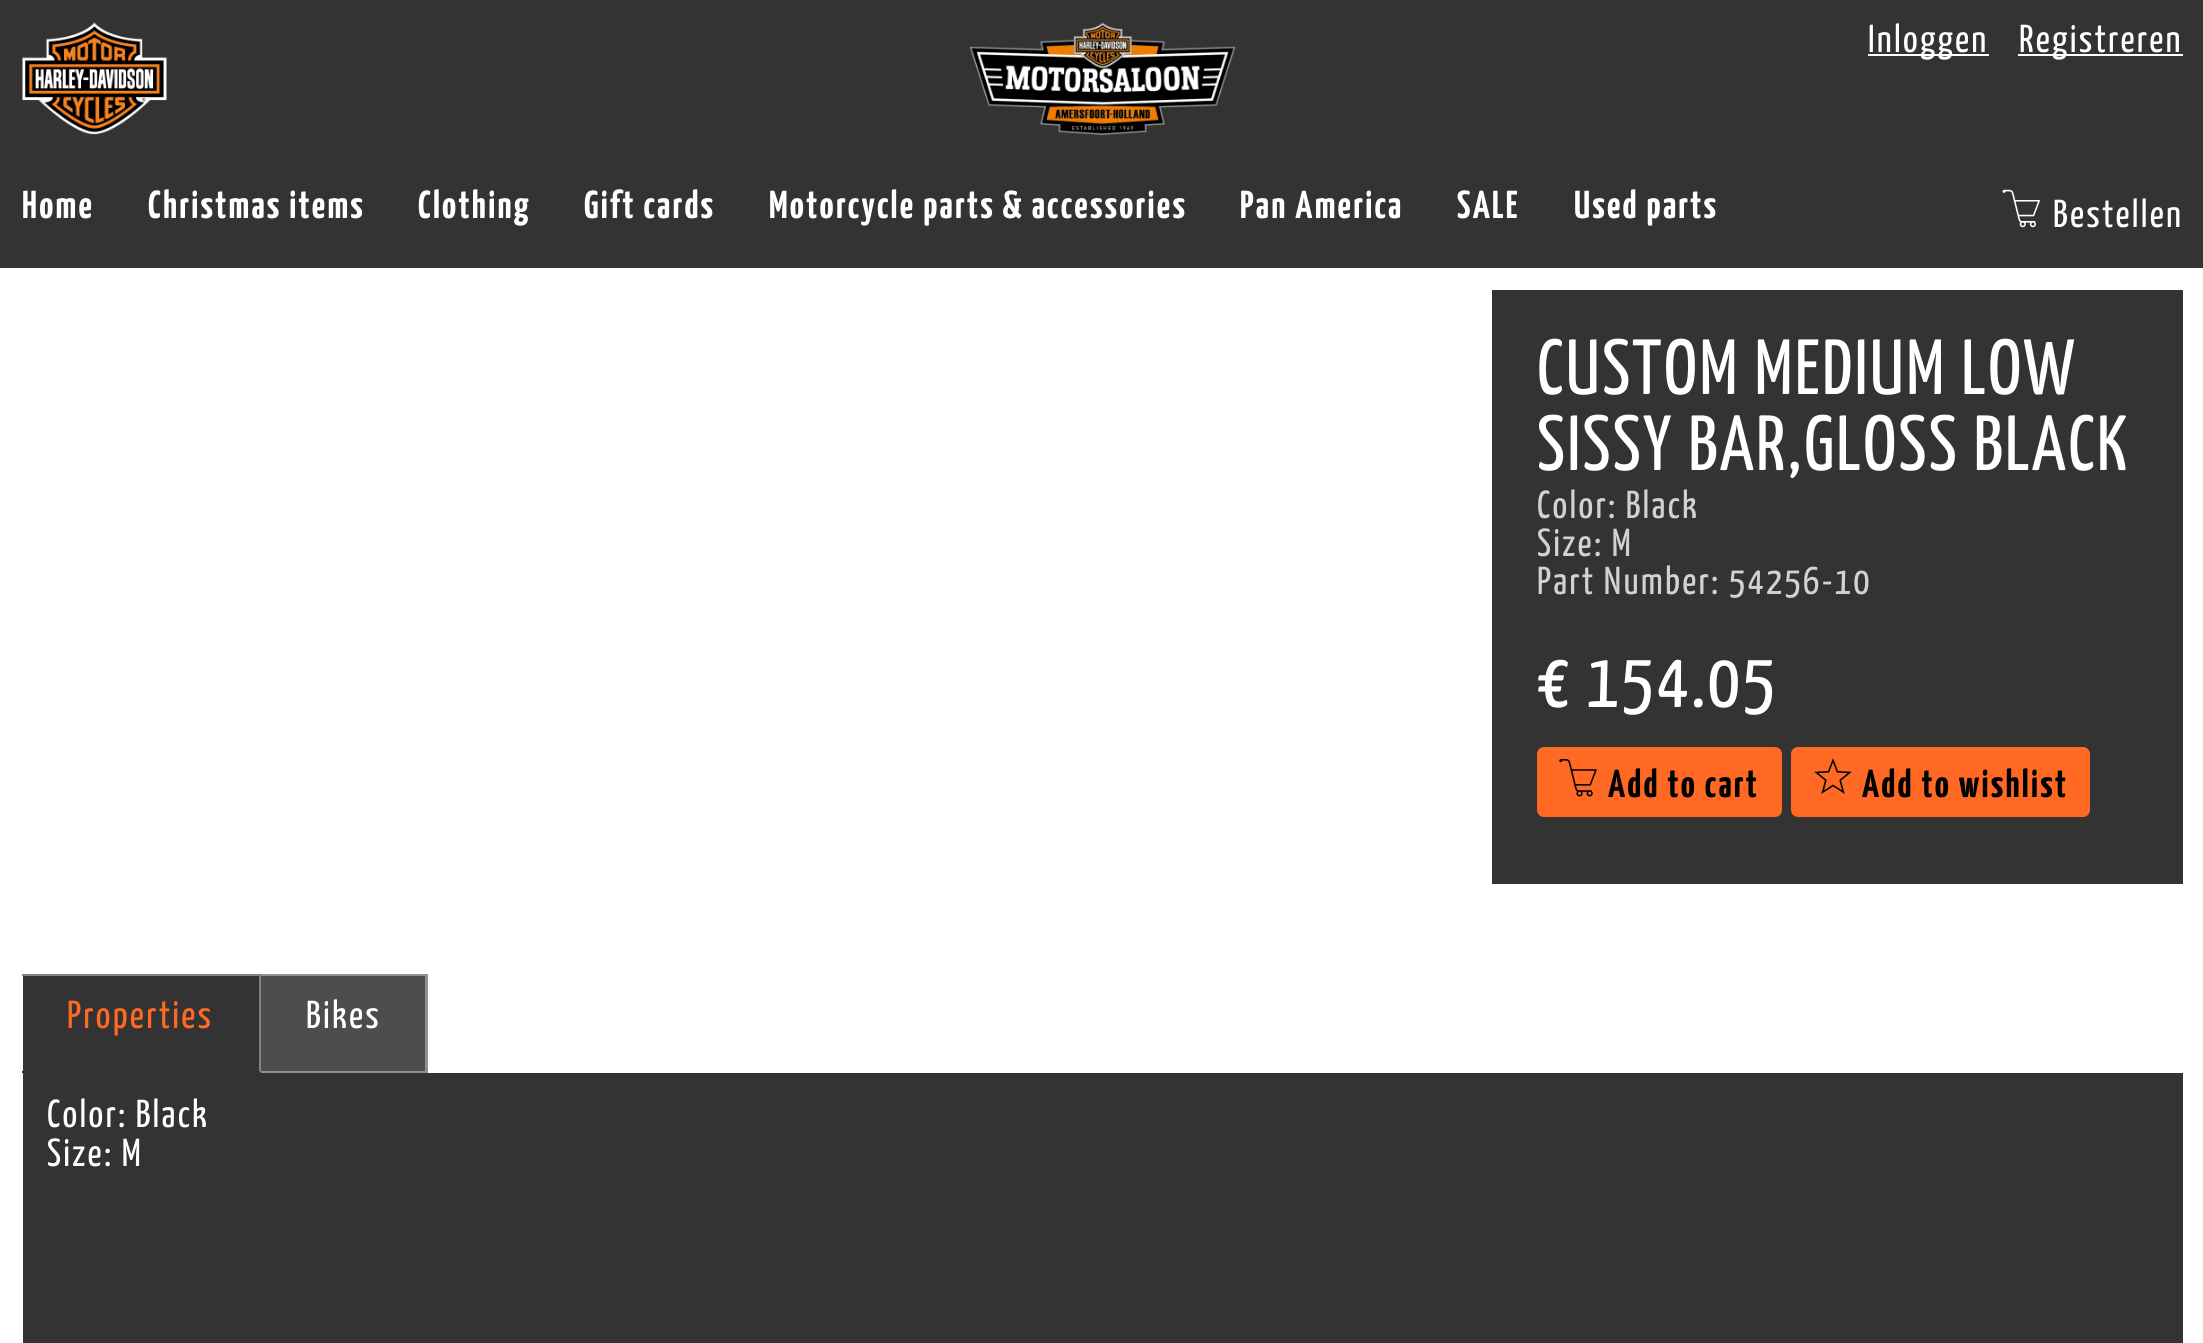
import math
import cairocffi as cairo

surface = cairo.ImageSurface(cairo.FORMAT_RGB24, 2203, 1343)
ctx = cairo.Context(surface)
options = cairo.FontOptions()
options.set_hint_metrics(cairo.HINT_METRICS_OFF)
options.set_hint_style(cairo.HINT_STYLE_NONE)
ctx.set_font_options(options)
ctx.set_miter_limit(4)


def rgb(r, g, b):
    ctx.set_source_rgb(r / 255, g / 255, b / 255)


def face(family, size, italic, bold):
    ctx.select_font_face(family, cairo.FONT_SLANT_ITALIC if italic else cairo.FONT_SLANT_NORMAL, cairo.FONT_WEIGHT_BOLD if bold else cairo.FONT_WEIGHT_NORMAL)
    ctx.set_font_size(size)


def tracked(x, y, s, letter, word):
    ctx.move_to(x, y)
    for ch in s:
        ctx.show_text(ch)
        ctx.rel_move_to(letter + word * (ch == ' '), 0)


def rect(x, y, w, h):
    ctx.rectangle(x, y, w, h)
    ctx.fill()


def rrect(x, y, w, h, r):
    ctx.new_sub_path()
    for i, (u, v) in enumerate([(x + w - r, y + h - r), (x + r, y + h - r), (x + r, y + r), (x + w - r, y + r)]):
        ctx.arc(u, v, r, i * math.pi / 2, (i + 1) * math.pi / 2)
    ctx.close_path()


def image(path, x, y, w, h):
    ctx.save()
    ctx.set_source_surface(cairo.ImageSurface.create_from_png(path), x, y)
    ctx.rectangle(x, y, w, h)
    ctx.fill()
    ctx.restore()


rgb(255, 255, 255)
ctx.paint()
rgb(51, 51, 51)
rect(0, 0, 2203, 268)
image('image0.png', 22, 22, 145, 113)
image('image1.png', 969, 22, 267, 113)
rgb(255, 255, 255)
rect(1868, 54, 121, 2)
face('Yanone Kaffeesatz', 39, 0, 0)
tracked(1868, 52, 'Inloggen', 2.25, 0)
rect(2018, 54, 165, 2)
tracked(2019, 52, 'Registreren', 2.25, 0)
face('Yanone Kaffeesatz', 39, 0, 1)
tracked(22, 218, 'Home', 2.25, 0)
tracked(148, 218, 'Christmas items', 2.25, 0)
tracked(418, 218, 'Clothing', 2.25, 0)
tracked(584, 218, 'Gift cards', 2.25, 0)
tracked(769, 218, 'Motorcycle parts & accessories', 2.25, 0)
tracked(1240, 218, 'Pan America', 2.25, 0)
tracked(1457, 218, 'SALE', 2.25, 0)
tracked(1574, 218, 'Used parts', 2.25, 0)
image('image2.png', 2002, 189, 38, 39)
face('Yanone Kaffeesatz', 39, 0, 0)
tracked(2053, 227, 'Bestellen', 2.25, 0)
rgb(51, 51, 51)
rect(1492, 290, 691, 594)
face('Yanone Kaffeesatz', 78, 0, 0)
rgb(255, 255, 255)
tracked(1537, 394, 'CUSTOM MEDIUM LOW', 2.25, 0)
tracked(1537, 470, 'SISSY BAR,GLOSS BLACK', 2.25, 0)
face('Yanone Kaffeesatz', 39, 0, 0)
rgb(211, 210, 209)
tracked(1537, 518, 'Color: Black', 2.25, 0)
tracked(1537, 556, 'Size: M', 2.25, 0)
tracked(1537, 594, 'Part Number: 54256-10', 2.25, 0)
face('Yanone Kaffeesatz', 78, 0, 0)
rgb(255, 255, 255)
tracked(1537, 707, '€ 154.05', 2.25, 0)
rgb(255, 105, 36)
rrect(1537, 747, 245, 70, 7)
ctx.fill()
image('image3.png', 1559, 759, 38, 38)
face('Yanone Kaffeesatz', 39, 0, 1)
rgb(1, 1, 1)
tracked(1608, 797, 'Add to cart', 2.25, 0)
rgb(255, 105, 36)
rrect(1791, 747, 299, 70, 7)
ctx.fill()
image('image4.png', 1814, 758, 38, 36)
rgb(1, 1, 1)
tracked(1862, 797, 'Add to wishlist', 2.25, 0)
rgb(51, 51, 51)
rect(23, 974, 238, 99)
rgb(131, 131, 130)
ctx.new_path()
ctx.move_to(22, 974)
ctx.line_to(261, 974)
ctx.line_to(259, 976)
ctx.line_to(22, 976)
ctx.close_path()
ctx.fill()
ctx.set_source_rgba(0.827, 0.824, 0.82, 0.5)
ctx.new_path()
ctx.move_to(261, 974)
ctx.line_to(261, 1073)
ctx.line_to(259, 1071)
ctx.line_to(259, 976)
ctx.close_path()
ctx.fill()
rgb(51, 51, 51)
ctx.new_path()
ctx.move_to(261, 1073)
ctx.line_to(22, 1073)
ctx.line_to(22, 1071)
ctx.line_to(259, 1071)
ctx.close_path()
ctx.fill()
face('Yanone Kaffeesatz', 39, 0, 0)
rgb(255, 105, 36)
tracked(67, 1028, 'Properties', 2.25, 0)
rgb(77, 77, 77)
rect(261, 974, 167, 99)
rgb(144, 144, 143)
ctx.new_path()
ctx.move_to(261, 974)
ctx.line_to(428, 974)
ctx.line_to(425, 976)
ctx.line_to(261, 976)
ctx.close_path()
ctx.fill()
ctx.set_source_rgba(0.827, 0.824, 0.82, 0.5)
ctx.new_path()
ctx.move_to(428, 974)
ctx.line_to(428, 1073)
ctx.line_to(425, 1071)
ctx.line_to(425, 976)
ctx.close_path()
ctx.fill()
ctx.new_path()
ctx.move_to(428, 1073)
ctx.line_to(261, 1073)
ctx.line_to(261, 1071)
ctx.line_to(425, 1071)
ctx.close_path()
ctx.fill()
rgb(255, 255, 255)
tracked(306, 1028, 'Bikes', 2.25, 0)
rgb(51, 51, 51)
rect(23, 1073, 2160, 270)
rgb(255, 255, 255)
tracked(47, 1127, 'Color: Black', 2.25, 0)
tracked(47, 1166, 'Size: M', 2.25, 0)
surface.write_to_png('render.png')
